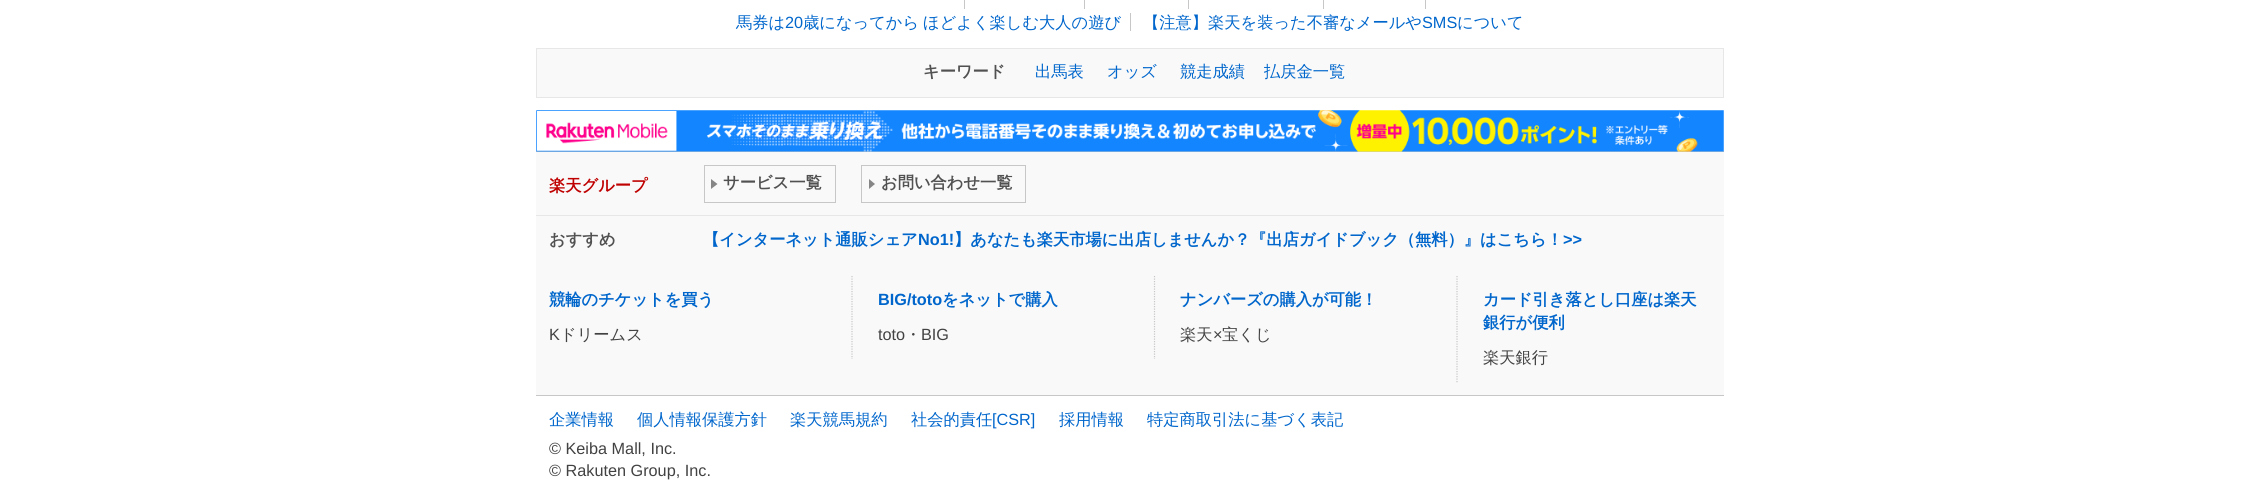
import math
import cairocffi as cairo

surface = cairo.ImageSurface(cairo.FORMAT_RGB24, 2260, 494)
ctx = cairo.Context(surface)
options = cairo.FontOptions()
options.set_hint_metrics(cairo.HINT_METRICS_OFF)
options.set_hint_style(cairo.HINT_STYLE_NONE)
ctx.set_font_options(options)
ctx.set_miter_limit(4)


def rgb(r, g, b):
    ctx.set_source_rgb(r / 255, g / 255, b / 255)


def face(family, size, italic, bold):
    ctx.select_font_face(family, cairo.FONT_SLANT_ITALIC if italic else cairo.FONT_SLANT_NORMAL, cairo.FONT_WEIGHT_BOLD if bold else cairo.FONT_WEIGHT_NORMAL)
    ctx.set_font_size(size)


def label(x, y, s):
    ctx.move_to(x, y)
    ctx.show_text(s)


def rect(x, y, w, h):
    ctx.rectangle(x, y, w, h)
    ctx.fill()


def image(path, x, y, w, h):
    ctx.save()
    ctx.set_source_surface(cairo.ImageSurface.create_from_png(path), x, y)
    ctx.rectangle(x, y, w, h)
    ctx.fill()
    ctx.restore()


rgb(255, 255, 255)
ctx.paint()
rgb(199, 199, 199)
rect(964, 0, 1, 9)
rect(1084, 0, 1, 9)
rect(1188, 0, 1, 9)
rect(1323, 0, 1, 9)
rect(1425, 0, 1, 9)
face('WenQuanYi Zen Hei Medium', 16.25, 0, 0)
rgb(0, 102, 204)
label(736, 28, '馬券は')
face('Liberation Sans', 16.25, 0, 0)
label(785, 28, '20')
face('WenQuanYi Zen Hei Medium', 16.25, 0, 0)
label(803, 28, '歳になってから')
label(923, 28, 'ほどよく楽しむ大人の遊び')
rgb(199, 199, 199)
rect(1130, 13, 1, 18)
rgb(0, 102, 204)
label(1143, 28, '【注意】楽天を装った不審なメールや')
face('Liberation Sans', 16.25, 0, 0)
label(1422, 28, 'SMS')
face('WenQuanYi Zen Hei Medium', 16.25, 0, 0)
label(1457, 28, 'について')
rgb(249, 249, 249)
ctx.rectangle(536.5, 48.5, 1187, 49)
ctx.fill_preserve()
rgb(231, 231, 231)
ctx.set_line_width(1)
ctx.stroke()
face('WenQuanYi Zen Hei', 16.25, 0, 1)
rgb(81, 81, 81)
label(923, 77, 'キーワード')
face('WenQuanYi Zen Hei Medium', 16.25, 0, 0)
rgb(0, 102, 204)
label(1035, 77, '出馬表')
label(1107, 77, 'オッズ')
label(1180, 77, '競走成績')
label(1264, 77, '払戻金一覧')
rgb(199, 199, 199)
rect(536, 151, 1188, 1)
image('image0.png', 536, 110, 1188, 42)
rgb(249, 249, 249)
rect(536, 152, 1188, 243)
rgb(199, 199, 199)
rect(536, 395, 1188, 1)
face('WenQuanYi Zen Hei', 16.25, 0, 1)
rgb(191, 0, 0)
label(549, 191, '楽天グループ')
ctx.rectangle(704.5, 165.5, 131, 37)
rgb(199, 199, 199)
ctx.stroke()
rgb(134, 134, 134)
ctx.new_path()
ctx.move_to(711, 189)
ctx.line_to(711, 179)
ctx.line_to(717.5, 184)
ctx.close_path()
ctx.fill()
rgb(81, 81, 81)
label(723, 188, 'サービス一覧')
ctx.rectangle(861.5, 165.5, 164, 37)
rgb(199, 199, 199)
ctx.stroke()
rgb(134, 134, 134)
ctx.new_path()
ctx.move_to(869, 189)
ctx.line_to(869, 179)
ctx.line_to(875, 184)
ctx.close_path()
ctx.fill()
rgb(81, 81, 81)
label(881, 188, 'お問い合わせ一覧')
rgb(231, 231, 231)
rect(536, 215, 1188, 1)
rgb(81, 81, 81)
label(549, 245, 'おすすめ')
rgb(0, 102, 204)
label(703, 245, '【インターネット通販シェア')
face('Liberation Sans', 16.25, 0, 1)
label(918, 245, 'No1!')
face('WenQuanYi Zen Hei', 16.25, 0, 1)
label(954, 245, '】あなたも楽天市場に出店しませんか？『出店ガイドブック（無料）』はこちら！')
face('Liberation Sans', 16.25, 0, 1)
label(1563, 245, '>>')
face('WenQuanYi Zen Hei', 16.25, 0, 1)
label(549, 305, '競輪のチケットを買う')
face('Liberation Sans', 16.25, 0, 0)
rgb(66, 66, 66)
label(549, 340, 'K')
face('WenQuanYi Zen Hei Medium', 16.25, 0, 0)
label(560, 340, 'ドリームス')
ctx.new_path()
ctx.move_to(852, 276)
ctx.line_to(852, 359)
rgb(199, 199, 199)
ctx.set_line_width(1.2)
ctx.set_dash([1.25, 1.25])
ctx.stroke()
face('Liberation Sans', 16.25, 0, 1)
rgb(0, 102, 204)
label(878, 305, 'BIG/toto')
face('WenQuanYi Zen Hei', 16.25, 0, 1)
label(942, 305, 'をネットで購入')
face('Liberation Sans', 16.25, 0, 0)
rgb(66, 66, 66)
label(878, 340, 'toto')
face('WenQuanYi Zen Hei Medium', 16.25, 0, 0)
label(905, 340, '・')
face('Liberation Sans', 16.25, 0, 0)
label(921, 340, 'BIG')
ctx.new_path()
ctx.move_to(1154.5, 276)
ctx.line_to(1154.5, 359)
rgb(199, 199, 199)
ctx.stroke()
face('WenQuanYi Zen Hei', 16.25, 0, 1)
rgb(0, 102, 204)
label(1180, 305, 'ナンバーズの購入が可能！')
face('WenQuanYi Zen Hei Medium', 16.25, 0, 0)
rgb(66, 66, 66)
label(1180, 340, '楽天')
face('Liberation Sans', 16.25, 0, 0)
label(1213, 340, '×')
face('WenQuanYi Zen Hei Medium', 16.25, 0, 0)
label(1222, 340, '宝くじ')
ctx.new_path()
ctx.move_to(1457, 276)
ctx.line_to(1457, 382.5)
rgb(199, 199, 199)
ctx.stroke()
face('WenQuanYi Zen Hei', 16.25, 0, 1)
rgb(0, 102, 204)
label(1483, 305, 'カード引き落とし口座は楽天')
label(1483, 328, '銀行が便利')
face('WenQuanYi Zen Hei Medium', 16.25, 0, 0)
rgb(66, 66, 66)
label(1483, 363, '楽天銀行')
rgb(0, 102, 204)
label(549, 425, '企業情報')
label(637, 425, '個人情報保護方針')
label(790, 425, '楽天競馬規約')
label(911, 425, '社会的責任')
face('Liberation Sans', 16.25, 0, 0)
label(992, 425, '[CSR]')
face('WenQuanYi Zen Hei Medium', 16.25, 0, 0)
label(1059, 425, '採用情報')
label(1147, 425, '特定商取引法に基づく表記')
face('Liberation Sans', 16.25, 0, 0)
rgb(66, 66, 66)
label(549, 454, '© Keiba Mall, Inc.')
label(549, 476, '© Rakuten Group, Inc.')
surface.write_to_png('render.png')
